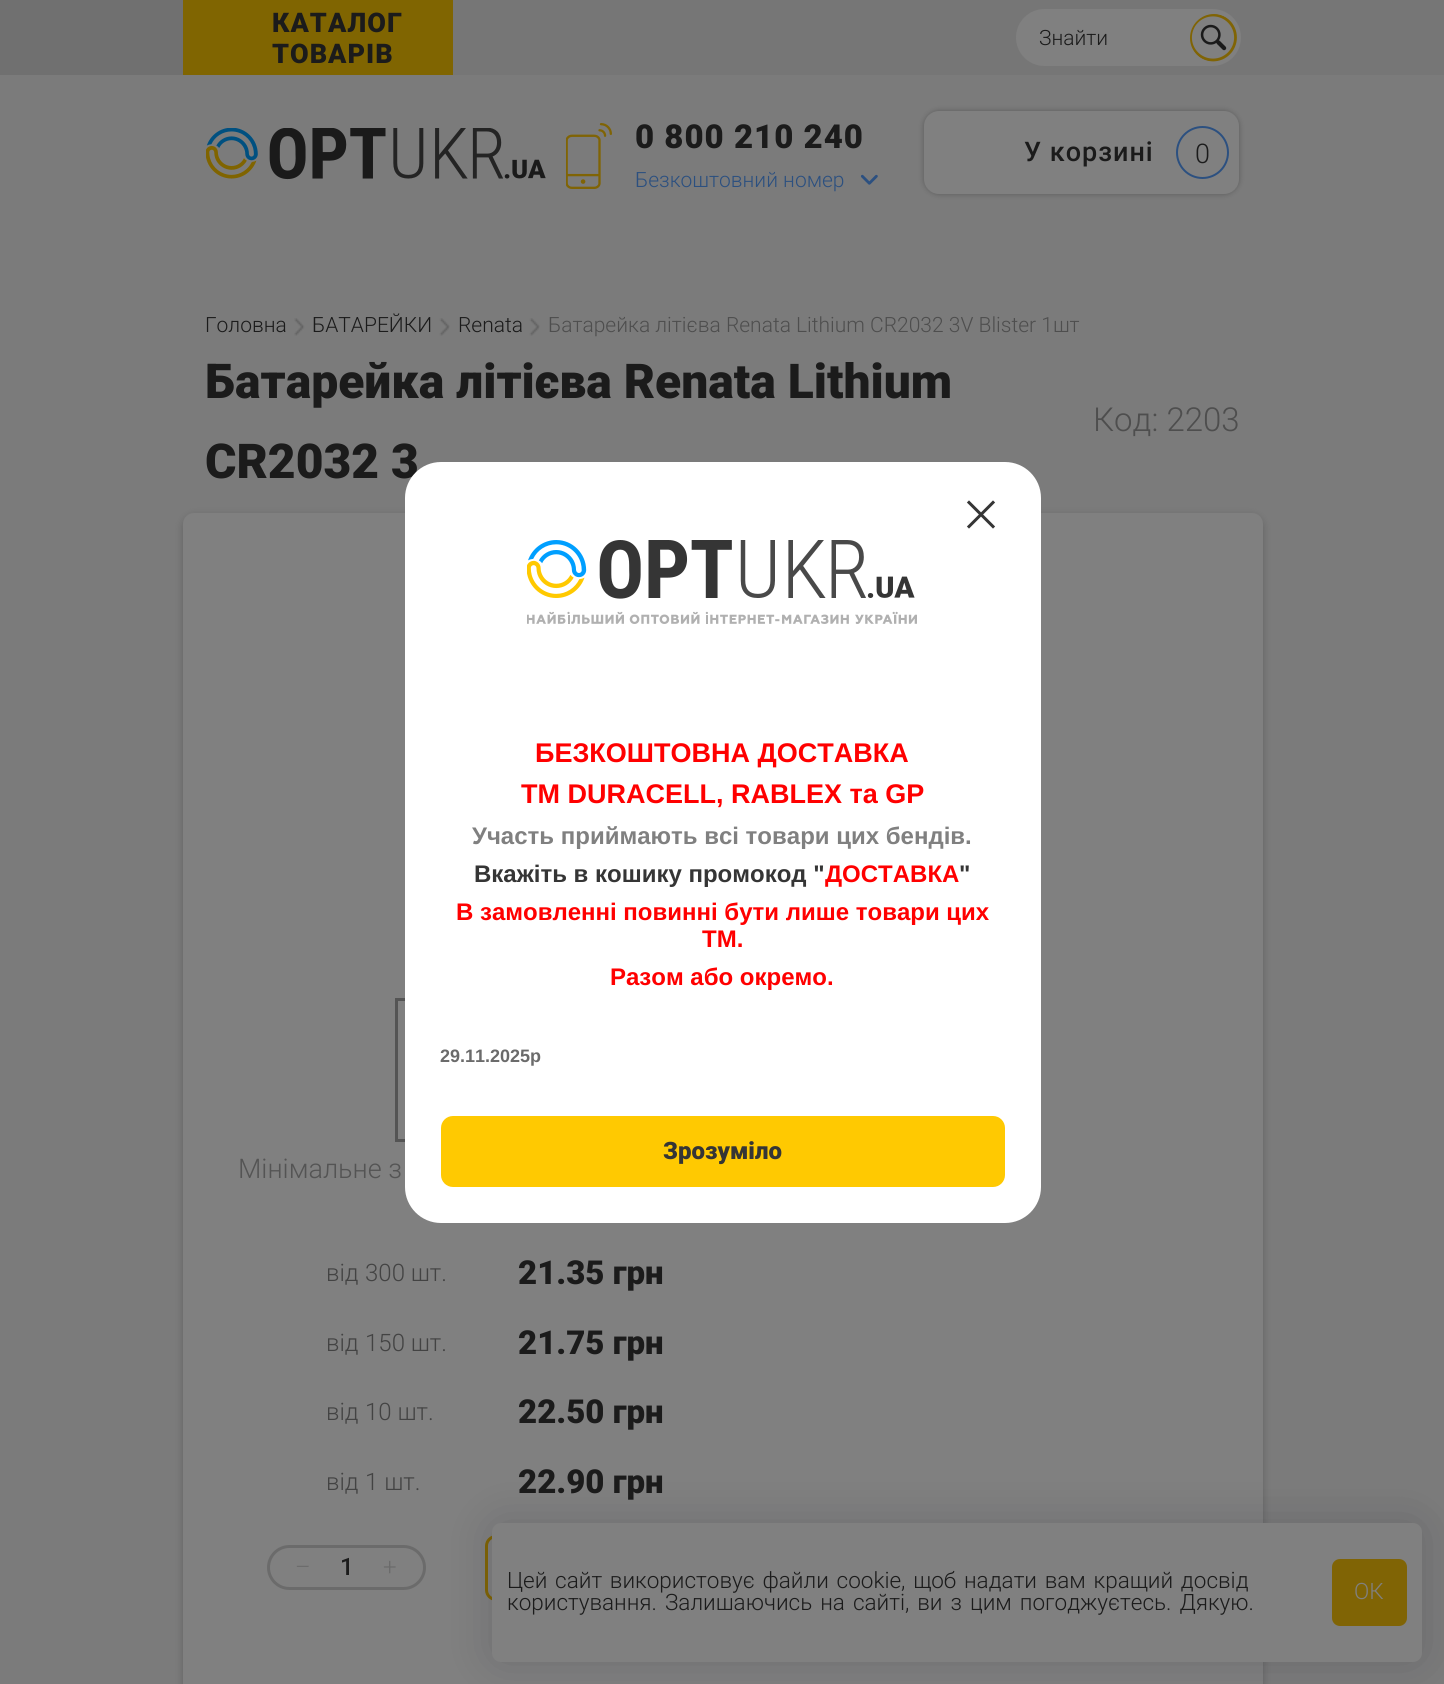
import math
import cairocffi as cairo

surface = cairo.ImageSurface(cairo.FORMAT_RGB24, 1444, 1684)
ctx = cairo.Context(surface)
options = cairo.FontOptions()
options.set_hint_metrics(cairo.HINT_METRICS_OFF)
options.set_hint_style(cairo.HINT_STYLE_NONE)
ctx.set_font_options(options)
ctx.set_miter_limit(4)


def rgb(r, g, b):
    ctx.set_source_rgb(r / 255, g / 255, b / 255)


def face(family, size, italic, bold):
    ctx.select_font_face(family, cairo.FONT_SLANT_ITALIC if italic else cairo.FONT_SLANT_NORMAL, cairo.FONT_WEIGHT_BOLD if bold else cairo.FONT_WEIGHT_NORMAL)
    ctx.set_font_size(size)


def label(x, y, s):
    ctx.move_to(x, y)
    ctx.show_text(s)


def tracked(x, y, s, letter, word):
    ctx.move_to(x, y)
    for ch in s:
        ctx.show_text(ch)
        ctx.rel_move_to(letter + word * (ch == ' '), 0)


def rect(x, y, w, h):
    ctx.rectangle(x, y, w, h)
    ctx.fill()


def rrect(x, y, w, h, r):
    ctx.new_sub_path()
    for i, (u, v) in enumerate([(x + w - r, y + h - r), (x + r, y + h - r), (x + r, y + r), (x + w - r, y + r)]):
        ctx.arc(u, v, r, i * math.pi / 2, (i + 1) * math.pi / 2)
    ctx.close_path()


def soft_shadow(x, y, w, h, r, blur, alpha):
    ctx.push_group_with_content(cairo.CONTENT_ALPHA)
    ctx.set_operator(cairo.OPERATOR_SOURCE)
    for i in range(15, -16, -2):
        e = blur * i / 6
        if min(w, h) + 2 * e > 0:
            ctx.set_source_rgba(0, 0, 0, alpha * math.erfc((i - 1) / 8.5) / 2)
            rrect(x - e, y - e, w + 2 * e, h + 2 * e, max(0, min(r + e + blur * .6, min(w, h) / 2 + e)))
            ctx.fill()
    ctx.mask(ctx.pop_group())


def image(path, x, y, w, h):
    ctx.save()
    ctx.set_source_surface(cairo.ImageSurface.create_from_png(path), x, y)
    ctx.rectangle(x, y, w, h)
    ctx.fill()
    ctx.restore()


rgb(123, 123, 123)
ctx.paint()
rgb(118, 118, 118)
rect(453, 0, 991, 75)
rgb(112, 112, 112)
rect(0, 0, 183, 75)
rgb(128, 101, 1)
rect(183, 0, 270, 75)
face('Roboto Black', 27, 0, 0)
rgb(27, 27, 27)
tracked(272, 32, 'КАТАЛОГ', 1, 0)
tracked(272, 63, 'ТОВАРІВ', 1, 0)
rgb(128, 128, 128)
rrect(1016, 9, 225, 57, 28.5)
ctx.fill()
face('Roboto Light', 21, 0, 0)
rgb(27, 27, 27)
label(1039, 45, 'Знайти')
image('image0.png', 1190, 14, 47, 48)
image('image1.png', 206, 128, 340, 52)
image('image2.png', 566, 123, 46, 66)
face('Roboto Black', 33, 0, 0)
tracked(635, 148, '0 800 210 240', 1, 0)
face('Roboto Light', 21, 0, 0)
rgb(44, 80, 128)
label(635, 187, 'Безкоштовний номер')
image('image3.png', 860, 174, 18, 11)
rgb(0, 0, 0)
soft_shadow(924, 111, 315, 83, 15, 3, 0.27)
rgb(128, 128, 128)
rrect(924, 111, 315, 83, 15)
ctx.fill()
face('Roboto Medium', 27, 0, 0)
rgb(27, 27, 27)
tracked(1024, 161, 'У корзині', 1, 0)
ctx.new_path()
ctx.arc(1202.5, 152.5, 25.5, 0, 2 * math.pi)
rgb(44, 80, 128)
ctx.stroke()
face('Roboto Light', 27, 0, 0)
rgb(27, 27, 27)
label(1195, 163, '0')
face('Roboto Light', 21, 0, 0)
label(205, 332, 'Головна')
image('image4.png', 294, 318, 11, 18)
label(312, 332, 'БАТАРЕЙКИ')
image('image5.png', 439, 318, 11, 18)
label(458, 332, 'Renata')
image('image5.png', 529, 318, 11, 18)
rgb(78, 78, 78)
label(548, 332, 'Батарейка літієва Renata Lithium CR2032 3V Blister 1шт')
face('Roboto Black', 48, 0, 0)
rgb(27, 27, 27)
label(205, 398, 'Батарейка літієва Renata Lithium')
label(205, 478, 'CR2032 3')
face('Roboto Light', 33, 0, 0)
rgb(78, 78, 78)
label(1093, 431, 'Код: 2203')
rgb(0, 0, 0)
soft_shadow(183, 516, 1080, 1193, 11, 4.5, 0.2)
rgb(128, 128, 128)
rrect(183, 513, 1080, 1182, 11)
ctx.fill()
ctx.rectangle(396.5, 999.5, 138, 141)
rgb(84, 84, 84)
ctx.set_line_width(3)
ctx.stroke()
face('Roboto Light', 27, 0, 0)
label(238, 1178, 'Мінімальне з')
face('Roboto Light', 24, 0, 0)
rgb(67, 67, 67)
label(326, 1281, 'від')
label(365, 1281, '300 шт.')
face('Roboto Black', 33, 0, 0)
rgb(27, 27, 27)
label(518, 1284, '21.35 грн')
face('Roboto Light', 24, 0, 0)
rgb(67, 67, 67)
label(326, 1351, 'від')
label(365, 1351, '150 шт.')
face('Roboto Black', 33, 0, 0)
rgb(27, 27, 27)
label(518, 1354, '21.75 грн')
face('Roboto Light', 24, 0, 0)
rgb(67, 67, 67)
label(326, 1420, 'від')
label(365, 1420, '10 шт.')
face('Roboto Black', 33, 0, 0)
rgb(27, 27, 27)
label(518, 1423, '22.50 грн')
face('Roboto Light', 24, 0, 0)
rgb(67, 67, 67)
label(326, 1490, 'від')
label(365, 1490, '1 шт.')
face('Roboto Black', 33, 0, 0)
rgb(27, 27, 27)
label(518, 1493, '22.90 грн')
rrect(268.5, 1546.5, 156, 42, 21)
rgb(107, 107, 107)
ctx.stroke()
face('Roboto Light', 24, 0, 0)
label(295, 1575, '–')
face('Roboto Medium', 24, 0, 0)
rgb(27, 27, 27)
label(340, 1575, '1')
face('Roboto Light', 24, 0, 0)
rgb(107, 107, 107)
label(383, 1575, '+')
rrect(486.5, 1536.5, 177, 63, 9.5)
rgb(128, 100, 5)
ctx.stroke()
rgb(255, 255, 255)
rrect(405, 462, 636, 761, 36)
ctx.fill()
ctx.new_path()
ctx.move_to(969, 502.5)
ctx.line_to(993, 526.5)
ctx.move_to(993, 502.5)
ctx.line_to(969, 526.5)
rgb(53, 53, 53)
ctx.set_line_cap(cairo.LINE_CAP_SQUARE)
ctx.stroke()
image('image6.png', 527, 540, 390, 84)
face('Liberation Sans', 27, 0, 1)
rgb(255, 0, 0)
label(535, 762, 'БЕЗКОШТОВНА ДОСТАВКА')
label(521, 803, 'TM DURACELL, RABLEX та GP')
face('Liberation Sans', 24, 0, 1)
rgb(128, 128, 128)
label(472, 844, 'Участь приймають всі товари цих бендів.')
rgb(53, 53, 53)
label(474, 882, 'Вкажіть в кошику промокод "')
rgb(255, 0, 0)
label(825, 882, 'ДОСТАВКА')
rgb(53, 53, 53)
label(959, 882, '"')
rgb(255, 0, 0)
label(456, 920, 'В замовленні повинні бути лише товари цих')
label(702, 947, 'ТМ.')
label(610, 985, 'Разом або окремо.')
face('Liberation Sans', 18, 0, 1)
rgb(107, 107, 107)
label(440, 1062, '29.11.2025р')
rgb(255, 201, 1)
rrect(441, 1116, 564, 71, 12)
ctx.fill()
face('Roboto Black', 24, 0, 0)
rgb(53, 53, 53)
label(663, 1159, 'Зрозуміло')
rgb(3, 0, 16)
soft_shadow(492, 1523, 930, 139, 9, 22.5, 0.15)
rgb(128, 128, 128)
rrect(492, 1523, 930, 139, 9)
ctx.fill()
face('Roboto Light', 22.5, 0, 0)
rgb(27, 27, 27)
tracked(507, 1588, 'Цей сайт використовує файли cookie, щоб надати вам кращий досвід', 0, 2.25)
tracked(507, 1610, 'користування. Залишаючись на сайті, ви з цим погоджуєтесь. Дякую.', 0, 2.5)
rgb(128, 100, 5)
rrect(1332, 1559, 75, 67, 8)
ctx.fill()
rgb(128, 128, 128)
label(1354, 1599, 'ОК')
surface.write_to_png('render.png')
